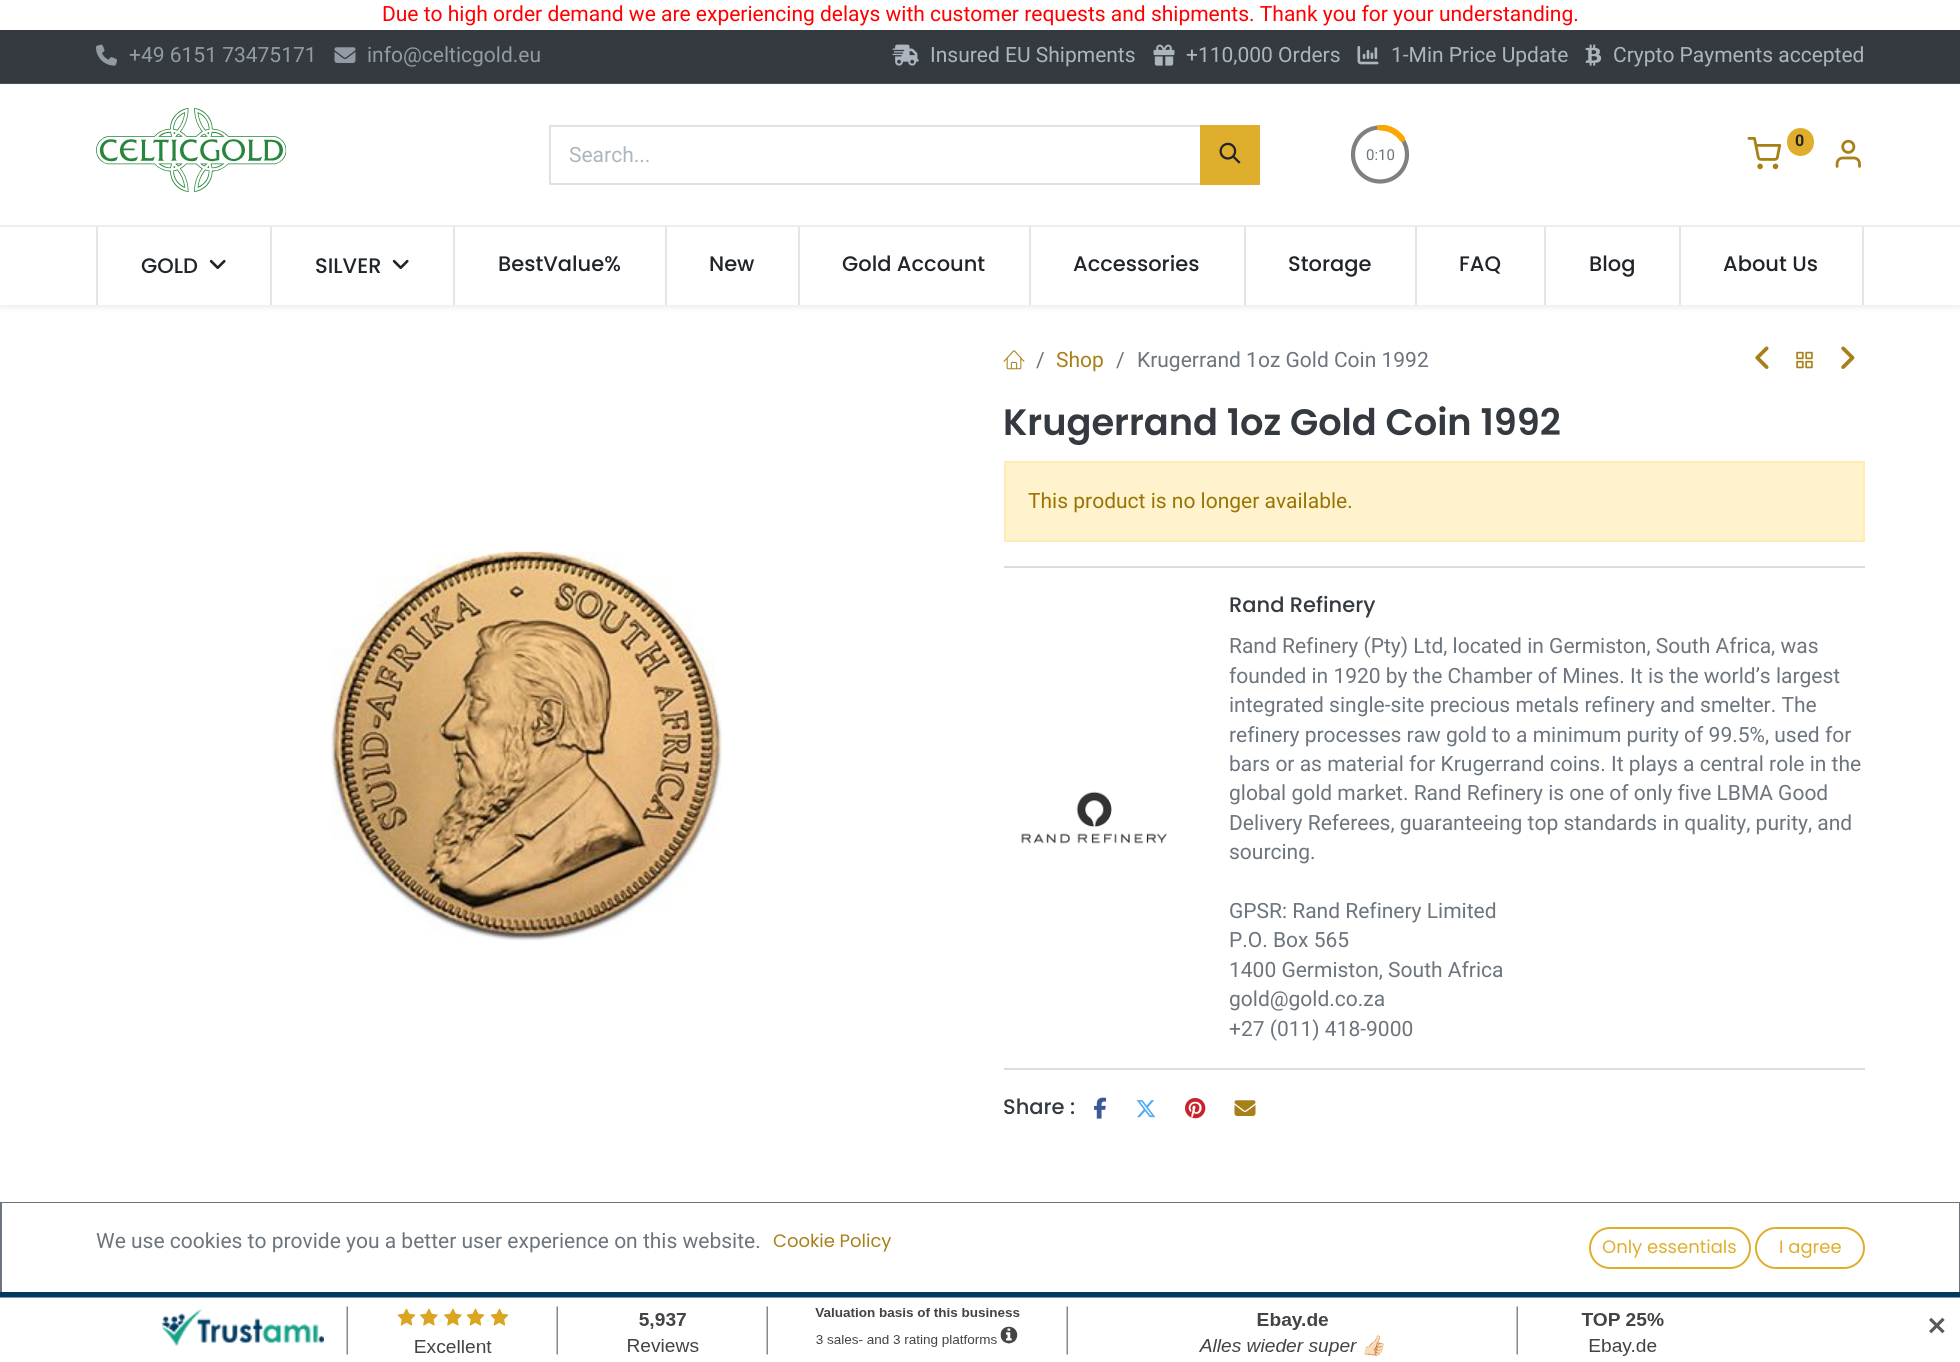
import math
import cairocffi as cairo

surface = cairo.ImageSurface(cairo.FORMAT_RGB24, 1960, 1362)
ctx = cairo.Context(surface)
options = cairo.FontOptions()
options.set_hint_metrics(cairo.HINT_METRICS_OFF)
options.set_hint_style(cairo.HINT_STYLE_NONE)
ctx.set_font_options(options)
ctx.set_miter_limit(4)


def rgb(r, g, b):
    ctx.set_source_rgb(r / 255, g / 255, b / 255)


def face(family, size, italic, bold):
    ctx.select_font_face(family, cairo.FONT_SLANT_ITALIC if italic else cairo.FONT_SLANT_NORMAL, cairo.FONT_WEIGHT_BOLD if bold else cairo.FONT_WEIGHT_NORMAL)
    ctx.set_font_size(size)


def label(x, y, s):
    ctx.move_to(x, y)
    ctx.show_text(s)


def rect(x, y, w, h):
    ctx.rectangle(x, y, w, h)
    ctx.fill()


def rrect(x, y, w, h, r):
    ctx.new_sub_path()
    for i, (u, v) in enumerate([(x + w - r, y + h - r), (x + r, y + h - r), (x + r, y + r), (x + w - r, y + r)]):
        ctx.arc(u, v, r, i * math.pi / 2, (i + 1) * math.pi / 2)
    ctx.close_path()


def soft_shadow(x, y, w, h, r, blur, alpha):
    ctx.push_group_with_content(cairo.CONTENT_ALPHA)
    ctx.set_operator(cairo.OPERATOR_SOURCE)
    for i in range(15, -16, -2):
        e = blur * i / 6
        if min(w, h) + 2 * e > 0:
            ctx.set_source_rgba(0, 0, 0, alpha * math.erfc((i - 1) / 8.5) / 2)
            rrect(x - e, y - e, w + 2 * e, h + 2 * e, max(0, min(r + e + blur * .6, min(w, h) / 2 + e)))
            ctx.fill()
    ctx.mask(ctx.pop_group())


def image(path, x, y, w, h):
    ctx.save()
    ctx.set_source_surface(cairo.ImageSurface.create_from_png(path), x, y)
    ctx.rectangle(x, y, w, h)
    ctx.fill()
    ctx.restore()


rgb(255, 255, 255)
ctx.paint()
face('Roboto', 21, 0, 0)
rgb(255, 0, 0)
label(382, 21, 'Due to high order demand we are experiencing delays with customer requests and shipments. Thank you for your understanding.')
rgb(52, 58, 64)
rect(0, 30, 1960, 53)
rgb(76, 82, 87)
rect(0, 83, 1960, 1)
image('image0.png', 96, 44, 21, 22)
rgb(147, 155, 162)
label(129, 62, '+49 6151 73475171')
image('image1.png', 334, 47, 22, 16)
label(367, 62, 'info@celticgold.eu')
image('image2.png', 892, 44, 27, 22)
rgb(173, 181, 189)
label(930, 62, 'Insured EU Shipments')
image('image3.png', 1153, 44, 22, 22)
label(1186, 62, '+110,000 Orders')
image('image4.png', 1357, 46, 22, 19)
label(1391, 62, '1-Min Price Update')
image('image5.png', 1585, 44, 17, 22)
label(1613, 62, 'Crypto Payments accepted')
rgb(237, 238, 239)
rect(0, 225, 1960, 2)
image('image6.png', 96, 108, 191, 84)
image('image7.png', 1747, 137, 35, 33)
rgb(224, 174, 45)
rrect(1787, 128, 27, 28, 13.5)
ctx.fill()
face('Roboto', 16, 0, 1)
rgb(33, 37, 41)
label(1795, 146, '0')
image('image8.png', 1835, 139, 26, 29)
ctx.rectangle(550, 126, 651, 58)
rgb(222, 226, 230)
ctx.stroke()
face('Roboto', 21, 0, 0)
rgb(173, 181, 189)
label(569, 162, 'Search...')
rgb(224, 174, 45)
rect(1200, 125, 60, 60)
image('image9.png', 1219, 142, 22, 22)
ctx.new_path()
ctx.move_to(1380, 127.5)
ctx.curve_to(1365, 127.5, 1353, 139.5, 1353, 154.5)
ctx.curve_to(1353, 169.5, 1365, 181.5, 1380, 181.5)
ctx.curve_to(1395, 181.5, 1407, 169.5, 1407, 154.5)
ctx.curve_to(1407, 139.5, 1395, 127.5, 1380, 127.5)
ctx.close_path()
rgb(128, 128, 128)
ctx.set_line_width(4.2)
ctx.stroke()
ctx.save()
ctx.rectangle(1350, 125, 60, 60)
ctx.clip()
ctx.new_path()
ctx.move_to(1380, 127.5)
ctx.curve_to(1395, 127.5, 1407, 139.5, 1407, 154.5)
ctx.curve_to(1407, 169.5, 1395, 181.5, 1380, 181.5)
ctx.curve_to(1365, 181.5, 1353, 169.5, 1353, 154.5)
ctx.curve_to(1353, 139.5, 1365, 127.5, 1380, 127.5)
rgb(255, 165, 0)
ctx.set_line_width(6)
ctx.set_line_cap(cairo.LINE_CAP_ROUND)
ctx.set_dash([25.8, 169.8])
ctx.stroke()
ctx.restore()
face('Roboto', 15, 0, 0)
rgb(108, 117, 125)
label(1366, 160, '0:10')
rgb(0, 0, 0)
soft_shadow(0, 230, 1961, 78, 0, 3, 0.07)
rgb(255, 255, 255)
rect(0, 227, 1960, 78)
rgb(228, 229, 229)
rect(96, 227, 2, 78)
face('Poppins Medium', 21, 0, 0)
rgb(33, 37, 41)
label(141, 273, 'GOLD')
image('image10.png', 209, 259, 17, 10)
rgb(228, 229, 229)
rect(270, 227, 2, 78)
rgb(33, 37, 41)
label(315, 273, 'SILVER')
image('image10.png', 392, 259, 17, 10)
rgb(228, 229, 229)
rect(453, 227, 2, 78)
rgb(33, 37, 41)
label(498, 271, 'BestValue%')
rgb(228, 229, 229)
rect(665, 227, 2, 78)
rgb(33, 37, 41)
label(709, 271, 'New')
rgb(228, 229, 229)
rect(798, 227, 2, 78)
rgb(33, 37, 41)
label(842, 271, 'Gold Account')
rgb(228, 229, 229)
rect(1029, 227, 2, 78)
rgb(33, 37, 41)
label(1073, 271, 'Accessories')
rgb(228, 229, 229)
rect(1244, 227, 2, 78)
rgb(33, 37, 41)
label(1288, 271, 'Storage')
rgb(228, 229, 229)
rect(1415, 227, 2, 78)
rgb(33, 37, 41)
label(1459, 271, 'FAQ')
rgb(228, 229, 229)
rect(1544, 227, 2, 78)
rgb(33, 37, 41)
label(1589, 271, 'Blog')
rgb(228, 229, 229)
rect(1862, 227, 2, 78)
rect(1679, 227, 2, 78)
rgb(33, 37, 41)
label(1723, 271, 'About Us')
image('image11.png', 331, 551, 391, 390)
image('image12.png', 1003, 350, 22, 20)
face('Roboto', 21, 0, 0)
rgb(108, 117, 125)
label(1036, 367, '/')
rgb(168, 128, 25)
label(1056, 367, 'Shop')
rgb(108, 117, 125)
label(1116, 367, '/')
label(1137, 367, 'Krugerrand 1oz Gold Coin 1992')
image('image13.png', 1755, 346, 14, 23)
image('image14.png', 1796, 351, 17, 18)
image('image15.png', 1841, 346, 14, 23)
face('Poppins SemiBold', 36.75, 0, 0)
rgb(52, 58, 64)
label(1003, 435, 'Krugerrand 1oz Gold Coin 1992')
rgb(255, 243, 205)
ctx.rectangle(1005, 462, 859, 79)
ctx.fill_preserve()
rgb(255, 236, 181)
ctx.set_line_width(2)
ctx.stroke()
face('Roboto', 21, 0, 0)
rgb(153, 116, 4)
label(1028, 508, 'This product is no longer available.')
rgb(218, 221, 223)
rect(1004, 566, 861, 2)
image('image16.png', 1021, 791, 146, 53)
face('Poppins Medium', 21, 0, 0)
rgb(52, 58, 64)
label(1229, 612, 'Rand Refinery')
face('Roboto', 21, 0, 0)
rgb(108, 117, 125)
label(1229, 653, 'Rand Refinery (Pty) Ltd, located in Germiston, South Africa, was')
label(1229, 683, 'founded in 1920 by the Chamber of Mines. It is the world’s largest')
label(1229, 712, 'integrated single-site precious metals refinery and smelter. The')
label(1229, 742, 'refinery processes raw gold to a minimum purity of 99.5%, used for')
label(1229, 771, 'bars or as material for Krugerrand coins. It plays a central role in the')
label(1229, 800, 'global gold market. Rand Refinery is one of only five LBMA Good')
label(1229, 830, 'Delivery Referees, guaranteeing top standards in quality, purity, and')
label(1229, 859, 'sourcing.')
label(1229, 918, 'GPSR: Rand Refinery Limited')
label(1229, 947, 'P.O. Box 565')
label(1229, 977, '1400 Germiston, South Africa')
label(1229, 1006, 'gold@gold.co.za')
label(1229, 1036, '+27 (011) 418-9000')
rgb(218, 221, 223)
rect(1004, 1068, 861, 2)
face('Poppins Medium', 21, 0, 0)
rgb(52, 58, 64)
label(1003, 1114, 'Share :')
image('image17.png', 1094, 1097, 13, 22)
image('image18.png', 1136, 1100, 20, 18)
image('image19.png', 1185, 1097, 21, 22)
image('image20.png', 1234, 1100, 22, 16)
ctx.rectangle(1, 1203, 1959, 91)
rgb(108, 117, 125)
ctx.stroke()
rgb(255, 255, 255)
rect(2, 1203, 1957, 1)
face('Roboto', 21, 0, 0)
rgb(108, 117, 125)
label(96, 1248, 'We use cookies to provide you a better user experience on this website.')
face('Poppins', 18, 0, 0)
rgb(168, 128, 25)
label(773, 1247, 'Cookie Policy')
rrect(1590, 1228, 160, 40, 20)
rgb(224, 174, 45)
ctx.stroke()
label(1602, 1253, 'Only essentials')
rrect(1756, 1228, 108, 40, 20)
ctx.stroke()
label(1779, 1253, 'I agree')
image('image21.png', 0, 1292, 1960, 64)
face('DejaVu Sans', 25, 0, 1)
rgb(89, 89, 89)
label(1926, 1335, '✕')
surface.write_to_png('render.png')
